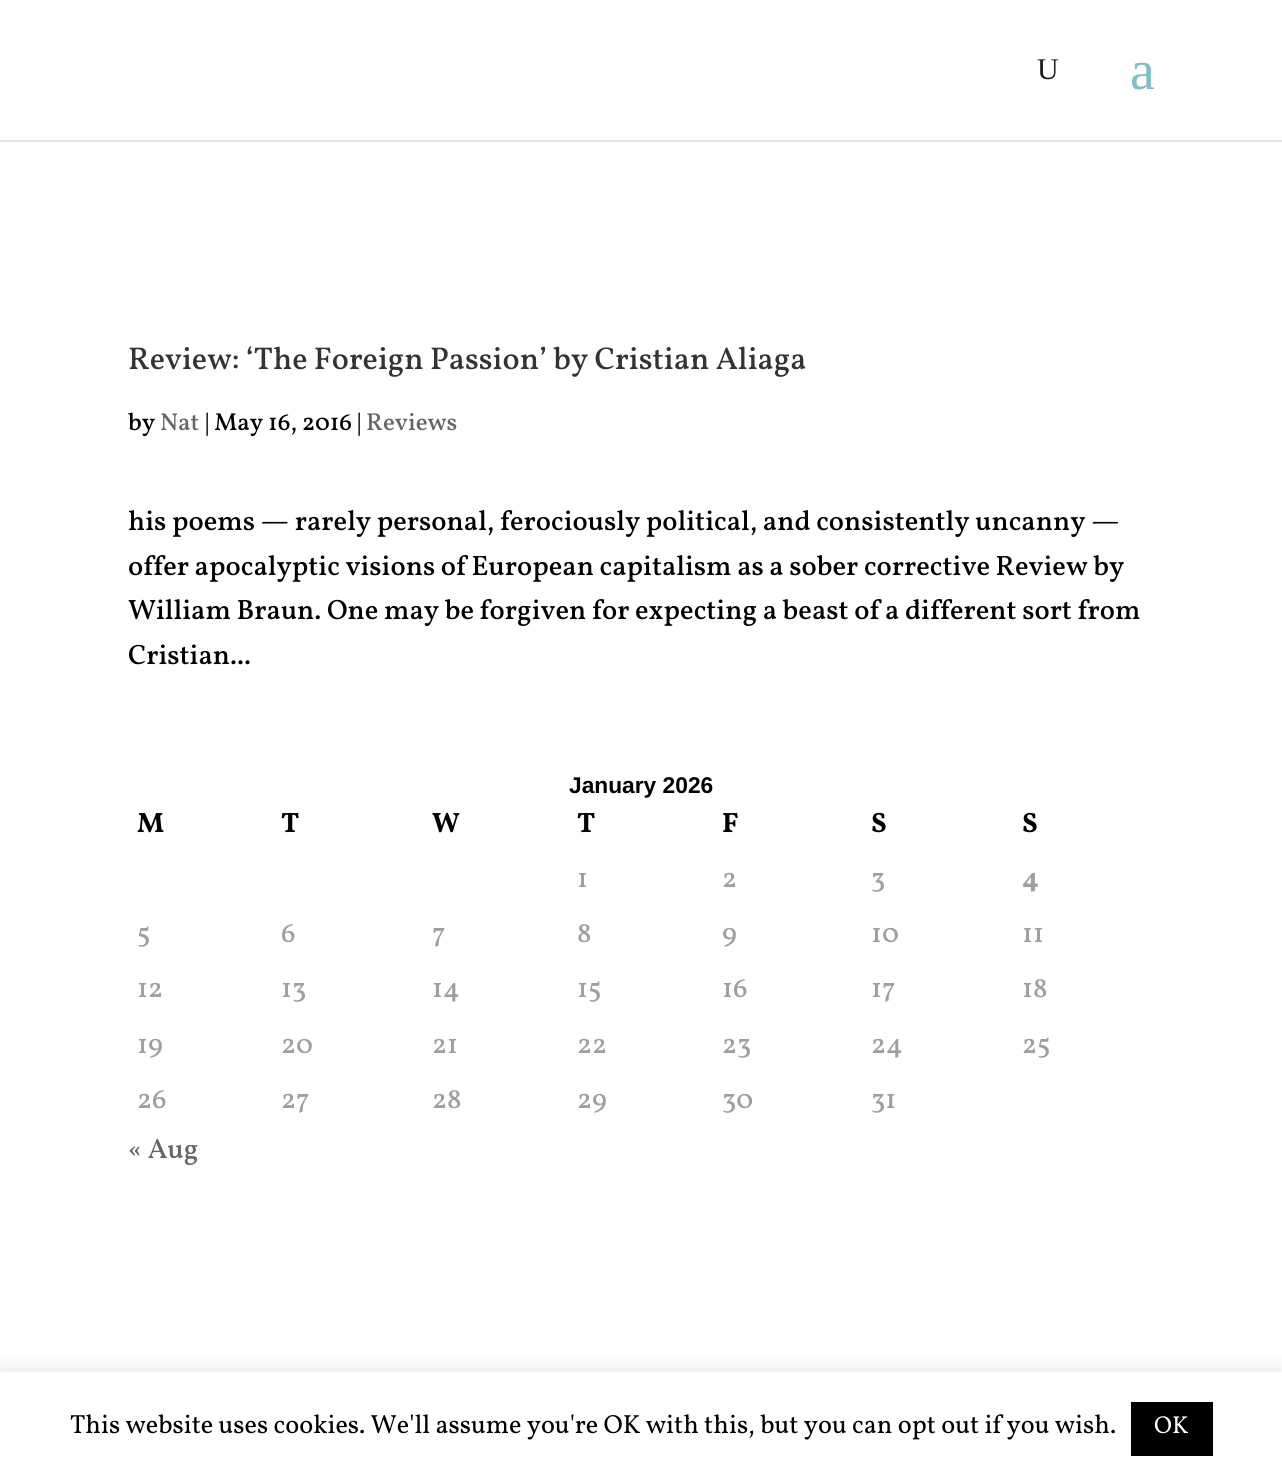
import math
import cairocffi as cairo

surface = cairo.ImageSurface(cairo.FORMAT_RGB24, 1282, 1477)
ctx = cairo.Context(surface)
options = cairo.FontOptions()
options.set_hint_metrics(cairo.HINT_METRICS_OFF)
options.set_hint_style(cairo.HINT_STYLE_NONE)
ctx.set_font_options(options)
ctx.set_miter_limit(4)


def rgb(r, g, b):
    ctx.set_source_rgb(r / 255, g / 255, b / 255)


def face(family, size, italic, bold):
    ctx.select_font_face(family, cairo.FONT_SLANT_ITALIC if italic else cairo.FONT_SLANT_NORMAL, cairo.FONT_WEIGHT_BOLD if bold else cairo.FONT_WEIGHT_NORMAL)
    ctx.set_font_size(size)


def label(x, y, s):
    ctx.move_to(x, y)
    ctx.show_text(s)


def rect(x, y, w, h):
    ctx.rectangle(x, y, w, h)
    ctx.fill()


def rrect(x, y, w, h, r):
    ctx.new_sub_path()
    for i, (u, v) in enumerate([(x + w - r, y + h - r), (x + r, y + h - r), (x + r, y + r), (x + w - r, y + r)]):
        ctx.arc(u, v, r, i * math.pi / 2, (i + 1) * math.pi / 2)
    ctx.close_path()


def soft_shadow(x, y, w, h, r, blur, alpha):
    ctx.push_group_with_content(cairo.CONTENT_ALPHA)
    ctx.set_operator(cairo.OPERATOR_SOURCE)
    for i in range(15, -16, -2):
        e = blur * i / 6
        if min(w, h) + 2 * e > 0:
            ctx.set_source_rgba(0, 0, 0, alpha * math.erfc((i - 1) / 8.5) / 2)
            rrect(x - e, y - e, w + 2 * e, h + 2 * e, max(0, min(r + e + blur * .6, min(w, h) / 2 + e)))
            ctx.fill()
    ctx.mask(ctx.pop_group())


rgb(255, 255, 255)
ctx.paint()
rgb(230, 230, 230)
ctx.new_path()
ctx.move_to(0, 140)
ctx.line_to(0, 142)
ctx.line_to(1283, 142)
ctx.line_to(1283, 2)
ctx.line_to(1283, 140)
ctx.close_path()
ctx.fill()
face('Liberation Serif', 30, 0, 0)
rgb(31, 31, 31)
label(1037, 79, 'U')
face('Liberation Serif', 56, 0, 0)
rgb(126, 190, 197)
label(1130, 89, 'a')
face('Vollkorn Medium', 31.5, 0, 0)
rgb(51, 51, 51)
label(128, 369, 'Review: ‘The Foreign Passion’ by Cristian Aliaga')
face('Vollkorn Medium', 24.5, 0, 0)
rgb(0, 0, 0)
label(128, 430, 'by')
rgb(102, 102, 102)
label(160, 430, 'Nat')
rgb(0, 0, 0)
label(205, 430, '| May 16, 2016 |')
rgb(102, 102, 102)
label(366, 430, 'Reviews')
face('Vollkorn Medium', 28, 0, 0)
rgb(0, 0, 0)
label(128, 530, 'his poems — rarely personal, ferociously political, and consistently uncanny —')
label(128, 575, 'offer apocalyptic visions of European capitalism as a sober corrective Review by')
label(128, 619, 'William Braun. One may be forgiven for expecting a beast of a different sort from')
label(128, 664, 'Cristian...')
face('Liberation Sans', 22.75, 0, 1)
label(569, 793, 'January 2026')
face('Vollkorn', 28, 0, 1)
label(137, 832, 'M')
label(281, 832, 'T')
label(432, 832, 'W')
label(577, 832, 'T')
label(722, 832, 'F')
label(871, 832, 'S')
label(1022, 832, 'S')
face('Vollkorn Medium', 28, 0, 0)
rgb(159, 159, 159)
label(577, 887, '1')
label(722, 887, '2')
label(871, 887, '3')
face('Vollkorn', 28, 0, 1)
label(1022, 887, '4')
face('Vollkorn Medium', 28, 0, 0)
label(137, 942, '5')
label(281, 942, '6')
label(432, 942, '7')
label(577, 942, '8')
label(722, 942, '9')
label(871, 942, '10')
label(1022, 942, '11')
label(137, 997, '12')
label(281, 997, '13')
label(432, 997, '14')
label(577, 997, '15')
label(722, 997, '16')
label(871, 997, '17')
label(1022, 997, '18')
label(137, 1053, '19')
label(281, 1053, '20')
label(432, 1053, '21')
label(577, 1053, '22')
label(722, 1053, '23')
label(871, 1053, '24')
label(1022, 1053, '25')
label(137, 1108, '26')
label(281, 1108, '27')
label(432, 1108, '28')
label(577, 1108, '29')
label(722, 1108, '30')
label(871, 1108, '31')
rgb(102, 102, 102)
label(128, 1158, '« Aug')
ctx.save()
ctx.rectangle(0, 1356, 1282, 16)
ctx.clip()
rgb(172, 171, 171)
soft_shadow(0, 1370, 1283, 105, 0, 9, 0.3)
ctx.restore()
face('Vollkorn', 26.25, 0, 0)
rgb(0, 0, 0)
label(70, 1433, 'This website uses cookies. We\'ll assume you\'re OK with this, but you can opt out if you wish.')
rect(1131, 1402, 82, 54)
face('Vollkorn', 24.5, 0, 0)
rgb(255, 255, 255)
label(1154, 1433, 'OK')
surface.write_to_png('render.png')
